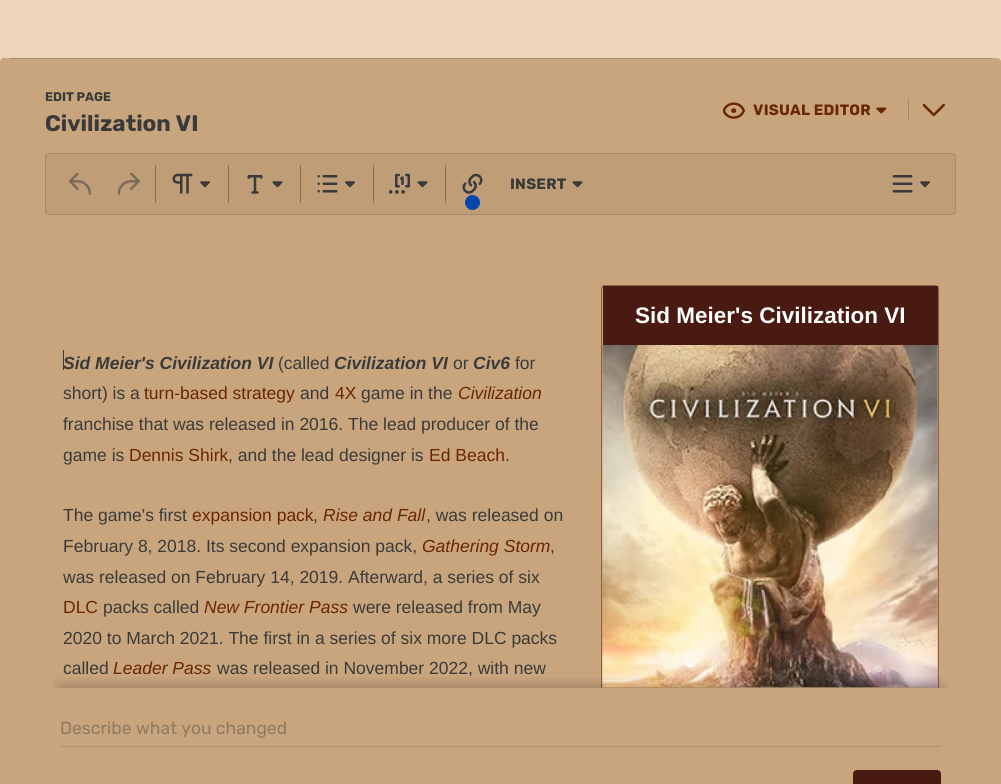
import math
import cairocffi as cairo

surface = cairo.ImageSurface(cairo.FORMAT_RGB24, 1001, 784)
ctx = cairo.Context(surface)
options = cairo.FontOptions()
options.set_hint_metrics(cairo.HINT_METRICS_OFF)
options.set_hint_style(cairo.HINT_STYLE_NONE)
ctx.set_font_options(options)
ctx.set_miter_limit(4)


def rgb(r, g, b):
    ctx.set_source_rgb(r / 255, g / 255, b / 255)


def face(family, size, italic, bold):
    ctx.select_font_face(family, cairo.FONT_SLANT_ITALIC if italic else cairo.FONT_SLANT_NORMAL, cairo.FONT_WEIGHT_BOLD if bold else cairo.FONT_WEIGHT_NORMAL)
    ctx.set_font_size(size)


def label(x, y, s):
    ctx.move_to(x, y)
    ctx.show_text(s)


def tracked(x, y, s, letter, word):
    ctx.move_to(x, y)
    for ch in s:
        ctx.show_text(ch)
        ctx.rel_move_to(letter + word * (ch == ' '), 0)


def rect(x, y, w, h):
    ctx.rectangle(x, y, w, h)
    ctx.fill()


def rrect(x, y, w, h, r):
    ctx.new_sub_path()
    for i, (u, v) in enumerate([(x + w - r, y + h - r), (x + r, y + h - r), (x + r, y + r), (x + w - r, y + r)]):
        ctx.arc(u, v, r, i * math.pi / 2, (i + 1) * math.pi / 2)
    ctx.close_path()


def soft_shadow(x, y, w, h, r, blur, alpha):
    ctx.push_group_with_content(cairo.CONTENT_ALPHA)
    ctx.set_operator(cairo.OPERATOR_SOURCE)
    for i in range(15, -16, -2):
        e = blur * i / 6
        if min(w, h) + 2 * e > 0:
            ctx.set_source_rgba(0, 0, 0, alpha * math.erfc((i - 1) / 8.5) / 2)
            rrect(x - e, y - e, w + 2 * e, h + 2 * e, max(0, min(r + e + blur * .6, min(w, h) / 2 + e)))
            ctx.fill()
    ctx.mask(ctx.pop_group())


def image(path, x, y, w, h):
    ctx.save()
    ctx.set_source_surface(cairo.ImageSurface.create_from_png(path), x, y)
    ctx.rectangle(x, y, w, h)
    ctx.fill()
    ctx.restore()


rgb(238, 214, 188)
ctx.paint()
rgb(200, 165, 125)
rrect(0, 58, 1001, 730, 4)
ctx.fill()
face('Rubik', 12.5, 0, 1)
rgb(58, 58, 58)
label(45, 101, 'EDIT PAGE')
face('Rubik', 22.5, 0, 1)
label(45, 131, 'Civilization VI')
image('image0.png', 723, 102, 22, 17)
face('Rubik', 15, 0, 1)
rgb(105, 38, 0)
tracked(753, 115, 'VISUAL EDITOR', 0.25, 0)
image('image1.png', 876, 107, 11, 7)
rgb(165, 138, 108)
rect(908, 100, 1, 20)
image('image2.png', 923, 103, 22, 14)
rgb(190, 157, 119)
rrect(45.5, 153.5, 910, 61, 3.5)
ctx.fill_preserve()
rgb(165, 138, 108)
ctx.set_line_width(1)
ctx.stroke()
rgb(129, 112, 92)
rect(155, 165, 1, 38)
image('image3.png', 69, 173, 22, 22)
image('image4.png', 118, 173, 22, 22)
rect(228, 165, 1, 38)
image('image5.png', 172, 173, 21, 21)
image('image6.png', 200, 181, 10, 7)
rect(300, 165, 1, 38)
image('image7.png', 247, 175, 16, 19)
image('image8.png', 272, 181, 11, 7)
rect(373, 165, 1, 38)
image('image9.png', 317, 175, 21, 18)
image('image6.png', 345, 181, 10, 7)
rect(445, 165, 1, 38)
image('image10.png', 389, 173, 21, 21)
image('image8.png', 417, 181, 11, 7)
image('image11.png', 462, 173, 21, 21)
rgb(6, 69, 173)
ctx.arc(472.5, 202.5, 7.5, 0, 2 * math.pi)
ctx.fill()
rgb(58, 58, 58)
tracked(510, 189, 'INSERT', 0.25, 0)
image('image8.png', 572, 181, 11, 7)
image('image12.png', 892, 175, 21, 18)
image('image6.png', 920, 181, 10, 7)
ctx.save()
ctx.rectangle(45, 215, 911, 473)
ctx.clip()
rrect(601.5, 285.5, 337, 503, 3.5)
rgb(137, 96, 71)
ctx.stroke()
ctx.restore()
image('image13.png', 602, 344, 336, 344)
rgb(73, 26, 17)
rect(603, 286, 335, 59)
face('Liberation Sans', 22.5, 0, 1)
rgb(255, 255, 255)
label(635, 323, 'Sid Meier\'s Civilization VI')
face('Liberation Sans', 17.5, 1, 1)
rgb(58, 58, 58)
label(63, 369, 'Sid Meier\'s Civilization VI')
face('Liberation Sans', 17.5, 0, 0)
label(278, 369, '(called')
face('Liberation Sans', 17.5, 1, 1)
label(334, 369, 'Civilization VI')
face('Liberation Sans', 17.5, 0, 0)
label(453, 369, 'or')
face('Liberation Sans', 17.5, 1, 1)
label(473, 369, 'Civ6')
face('Liberation Sans', 17.5, 0, 0)
label(515, 369, 'for')
label(63, 399, 'short) is a')
rgb(105, 38, 0)
label(144, 399, 'turn-based strategy')
rgb(58, 58, 58)
label(300, 399, 'and')
rgb(105, 38, 0)
label(335, 399, '4X')
rgb(58, 58, 58)
label(361, 399, 'game in the')
face('Liberation Sans', 17.5, 1, 0)
rgb(105, 38, 0)
label(458, 399, 'Civilization')
face('Liberation Sans', 17.5, 0, 0)
rgb(58, 58, 58)
label(63, 430, 'franchise that was released in 2016. The lead producer of the')
label(63, 461, 'game is')
rgb(105, 38, 0)
label(129, 461, 'Dennis Shirk')
rgb(58, 58, 58)
label(228, 461, ', and the lead designer is')
rgb(105, 38, 0)
label(429, 461, 'Ed Beach')
rgb(58, 58, 58)
label(505, 461, '.')
label(63, 521, 'The game\'s first')
rgb(105, 38, 0)
label(192, 521, 'expansion pack')
rgb(58, 58, 58)
label(313, 521, ',')
face('Liberation Sans', 17.5, 1, 0)
rgb(105, 38, 0)
label(323, 521, 'Rise and Fall')
face('Liberation Sans', 17.5, 0, 0)
rgb(58, 58, 58)
label(426, 521, ', was released on')
label(63, 552, 'February 8, 2018. Its second expansion pack,')
face('Liberation Sans', 17.5, 1, 0)
rgb(105, 38, 0)
label(422, 552, 'Gathering Storm')
face('Liberation Sans', 17.5, 0, 0)
rgb(58, 58, 58)
label(550, 552, ',')
label(63, 583, 'was released on February 14, 2019. Afterward, a series of six')
rgb(105, 38, 0)
label(63, 613, 'DLC')
rgb(58, 58, 58)
label(103, 613, 'packs called')
face('Liberation Sans', 17.5, 1, 0)
rgb(105, 38, 0)
label(204, 613, 'New Frontier Pass')
face('Liberation Sans', 17.5, 0, 0)
rgb(58, 58, 58)
label(353, 613, 'were released from May')
label(63, 644, '2020 to March 2021. The first in a series of six more DLC packs')
label(63, 674, 'called')
face('Liberation Sans', 17.5, 1, 0)
rgb(105, 38, 0)
label(113, 674, 'Leader Pass')
face('Liberation Sans', 17.5, 0, 0)
rgb(58, 58, 58)
label(217, 674, 'was released in November 2022, with new')
rect(63, 350, 1, 20)
ctx.save()
ctx.rectangle(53, 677, 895, 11)
ctx.clip()
rgb(0, 0, 0)
soft_shadow(60, 688, 881, 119, 0, 7.5, 0.3)
ctx.restore()
rgb(165, 138, 108)
rect(10, 58, 981, 1)
rgb(176, 146, 113)
rect(60, 746, 881, 1)
face('Rubik', 17.5, 0, 0)
rgb(143, 122, 98)
label(60, 734, 'Describe what you changed')
rgb(73, 26, 17)
rrect(853.5, 770.5, 87, 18, 3.5)
ctx.fill_preserve()
ctx.stroke()
surface.write_to_png('render.png')
